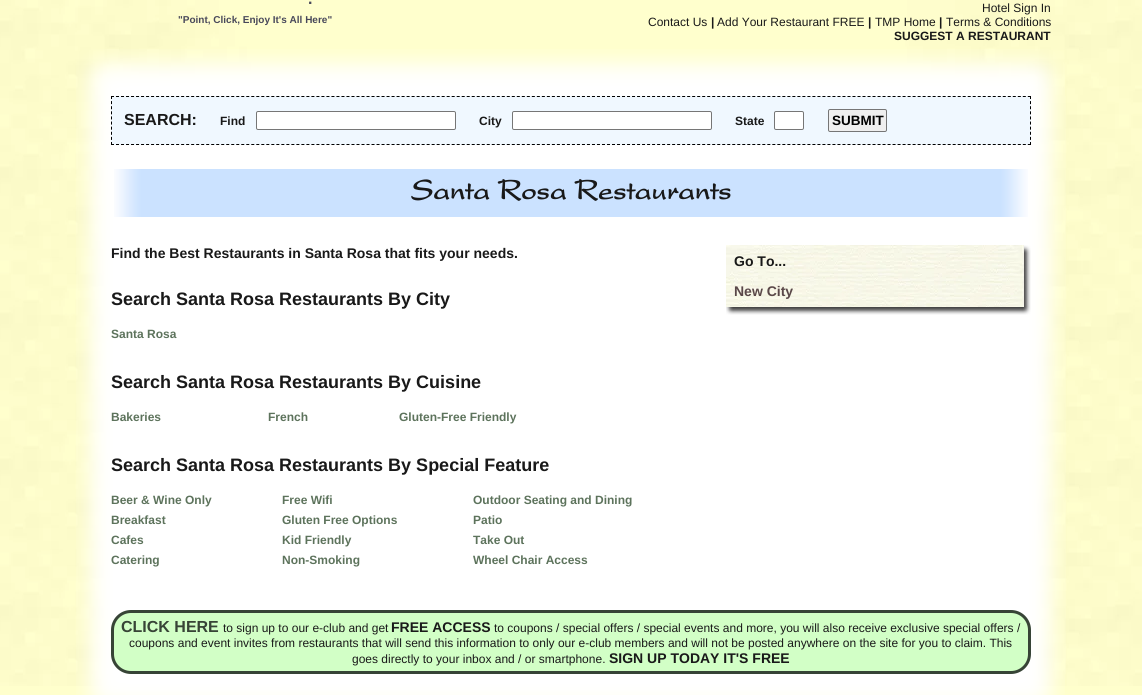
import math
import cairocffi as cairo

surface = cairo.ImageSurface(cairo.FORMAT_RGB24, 1142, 695)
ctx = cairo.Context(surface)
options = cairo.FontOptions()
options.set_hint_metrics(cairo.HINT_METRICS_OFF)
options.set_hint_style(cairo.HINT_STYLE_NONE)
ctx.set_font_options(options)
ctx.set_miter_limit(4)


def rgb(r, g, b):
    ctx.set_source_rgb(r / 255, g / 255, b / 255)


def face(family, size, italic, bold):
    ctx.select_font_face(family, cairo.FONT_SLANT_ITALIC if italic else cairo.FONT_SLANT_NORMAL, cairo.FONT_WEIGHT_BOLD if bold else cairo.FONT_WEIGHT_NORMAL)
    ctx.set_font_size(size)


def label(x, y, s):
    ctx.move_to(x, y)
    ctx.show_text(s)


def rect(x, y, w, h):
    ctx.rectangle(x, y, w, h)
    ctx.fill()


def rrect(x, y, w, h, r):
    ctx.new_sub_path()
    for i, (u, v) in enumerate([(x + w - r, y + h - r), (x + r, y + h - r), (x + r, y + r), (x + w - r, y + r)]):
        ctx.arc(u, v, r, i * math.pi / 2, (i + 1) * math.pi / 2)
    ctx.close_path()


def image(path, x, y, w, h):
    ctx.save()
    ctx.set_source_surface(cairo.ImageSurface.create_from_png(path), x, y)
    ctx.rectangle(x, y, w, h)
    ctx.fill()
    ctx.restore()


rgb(255, 255, 204)
ctx.paint()
image('image0.png', 0, 0, 1142, 686)
face('Liberation Sans', 16, 0, 1)
rgb(72, 72, 90)
label(308, 4, '.')
face('Liberation Sans', 10, 0, 1)
label(178, 23, '"Point, Click, Enjoy It\'s All Here"')
face('Liberation Sans', 12, 0, 0)
rgb(25, 25, 25)
label(982, 12, 'Hotel Sign In')
label(648, 26, 'Contact Us')
face('Liberation Sans', 12, 0, 1)
label(711, 26, '|')
face('Liberation Sans', 12, 0, 0)
label(717, 26, 'Add Your Restaurant FREE')
face('Liberation Sans', 12, 0, 1)
label(868, 26, '|')
face('Liberation Sans', 12, 0, 0)
label(875, 26, 'TMP Home')
face('Liberation Sans', 12, 0, 1)
label(939, 26, '|')
face('Liberation Sans', 12, 0, 0)
label(946, 26, 'Terms & Conditions')
face('Liberation Sans', 12, 0, 1)
label(894, 40, 'SUGGEST A RESTAURANT')
image('image1.png', 76, 49, 989, 47)
image('image2.png', 76, 96, 990, 578)
rgb(240, 248, 255)
rect(111, 96, 920, 49)
ctx.new_path()
ctx.move_to(111, 96.5)
ctx.line_to(1031, 96.5)
rgb(0, 0, 0)
ctx.set_line_width(1)
ctx.set_dash([3, 2.01])
ctx.stroke()
ctx.new_path()
ctx.move_to(1030.5, 96)
ctx.line_to(1030.5, 145)
ctx.set_dash([3, 2.11])
ctx.stroke()
ctx.new_path()
ctx.move_to(111, 144.5)
ctx.line_to(1031, 144.5)
ctx.set_dash([3, 2.01])
ctx.stroke()
ctx.new_path()
ctx.move_to(111.5, 96)
ctx.line_to(111.5, 145)
ctx.set_dash([3, 2.11])
ctx.stroke()
face('Liberation Sans', 16, 0, 1)
rgb(25, 25, 25)
label(124, 125, 'SEARCH:')
face('Liberation Sans', 12, 0, 1)
label(220, 125, 'Find')
rgb(255, 255, 255)
rrect(256.5, 111.5, 199, 18, 1.5)
ctx.fill_preserve()
rgb(118, 118, 118)
ctx.set_dash([])
ctx.stroke()
rgb(25, 25, 25)
label(479, 125, 'City')
rgb(255, 255, 255)
rrect(512.5, 111.5, 199, 18, 1.5)
ctx.fill_preserve()
rgb(118, 118, 118)
ctx.stroke()
rgb(25, 25, 25)
label(735, 125, 'State')
rgb(255, 255, 255)
rrect(774.5, 111.5, 29, 18, 1.5)
ctx.fill_preserve()
rgb(118, 118, 118)
ctx.stroke()
rgb(239, 239, 239)
rrect(828.5, 109.5, 58, 22, 1.5)
ctx.fill_preserve()
rgb(118, 118, 118)
ctx.stroke()
face('Liberation Sans', 13.5, 0, 1)
rgb(0, 0, 0)
label(832, 125, 'SUBMIT')
image('image3.png', 114, 169, 914, 48)
face('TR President', 30, 0, 1)
rgb(25, 25, 25)
label(411, 199, 'Santa Rosa Restaurants')
face('Liberation Sans', 14, 0, 1)
label(111, 258, 'Find the Best Restaurants in Santa Rosa that fits your needs.')
face('Liberation Sans', 18, 0, 1)
label(111, 305, 'Search Santa Rosa Restaurants By City')
face('Liberation Sans', 12, 0, 1)
rgb(93, 115, 92)
label(111, 338, 'Santa Rosa')
face('Liberation Sans', 18, 0, 1)
rgb(25, 25, 25)
label(111, 388, 'Search Santa Rosa Restaurants By Cuisine')
face('Liberation Sans', 12, 0, 1)
rgb(93, 115, 92)
label(111, 421, 'Bakeries')
label(268, 421, 'French')
label(399, 421, 'Gluten-Free Friendly')
face('Liberation Sans', 18, 0, 1)
rgb(25, 25, 25)
label(111, 471, 'Search Santa Rosa Restaurants By Special Feature')
face('Liberation Sans', 12, 0, 1)
rgb(93, 115, 92)
label(111, 504, 'Beer & Wine Only')
label(282, 504, 'Free Wifi')
label(473, 504, 'Outdoor Seating and Dining')
label(111, 524, 'Breakfast')
label(282, 524, 'Gluten Free Options')
label(473, 524, 'Patio')
label(111, 544, 'Cafes')
label(282, 544, 'Kid Friendly')
label(473, 544, 'Take Out')
label(111, 564, 'Catering')
label(282, 564, 'Non-Smoking')
label(473, 564, 'Wheel Chair Access')
image('image4.png', 726, 245, 305, 8)
image('image5.png', 726, 253, 305, 54)
face('Liberation Sans', 14, 0, 1)
rgb(25, 25, 25)
label(734, 266, 'Go To...')
rgb(90, 72, 73)
label(734, 296, 'New City')
image('image6.png', 726, 307, 305, 8)
rgb(210, 255, 198)
rrect(112.5, 611.5, 917, 61, 18.5)
ctx.fill_preserve()
rgb(55, 68, 54)
ctx.set_line_width(3)
ctx.stroke()
face('Liberation Sans', 16, 0, 1)
label(121, 632, 'CLICK HERE')
face('Liberation Sans', 12, 0, 0)
rgb(25, 25, 25)
label(223, 632, 'to sign up to our e-club and get')
face('Liberation Sans', 14, 0, 1)
label(391, 632, 'FREE ACCESS')
face('Liberation Sans', 12, 0, 0)
label(494, 632, 'to coupons / special offers / special events and more, you will also receive exclusive special offers /')
label(129, 647, 'coupons and event invites from restaurants that will send this information to only our e-club members and will not be posted anywhere on the site for you to claim. This')
label(352, 663, 'goes directly to your inbox and / or smartphone.')
face('Liberation Sans', 14, 0, 1)
label(609, 663, 'SIGN UP TODAY IT\'S FREE')
image('image7.png', 76, 674, 989, 21)
surface.write_to_png('render.png')
